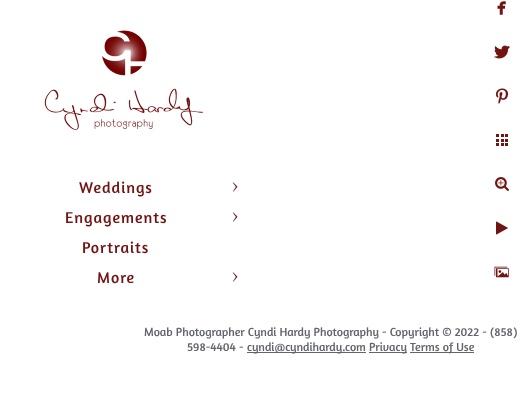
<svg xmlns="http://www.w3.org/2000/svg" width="529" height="398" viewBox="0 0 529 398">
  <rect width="100%" height="100%" fill="rgb(255,255,255)"/>
  <image x="44" y="30" width="160" height="100" href="pic1.png"/>
  <text x="79" y="193" font-family="Amaranth" font-size="16" letter-spacing="1" fill="rgb(113,20,18)">Weddings</text>
  <image x="232" y="182" width="6" height="10" href="pic2.png"/>
  <text x="65" y="223" font-family="Amaranth" font-size="16" letter-spacing="1" fill="rgb(113,20,18)">Engagements</text>
  <image x="232" y="212" width="6" height="10" href="pic2.png"/>
  <g font-family="Amaranth" font-size="16" letter-spacing="1" fill="rgb(113,20,18)">
    <text x="82" y="253">Portraits</text>
    <text x="97" y="283">More</text>
  </g>
  <image x="232" y="272" width="6" height="10" href="pic2.png"/>
  <image x="497" y="1" width="9" height="14" href="pic3.png"/>
  <image x="494" y="45" width="16" height="14" href="pic4.png"/>
  <image x="495" y="88" width="13" height="16" href="pic5.png"/>
  <image x="496" y="134" width="12" height="12" href="pic6.png"/>
  <image x="495" y="177" width="14" height="14" href="pic7.png"/>
  <image x="496" y="221" width="12" height="14" href="pic8.png"/>
  <image x="494" y="266" width="15" height="12" href="pic9.png"/>
  <g font-family="Amaranth" font-size="12" fill="rgb(98,101,110)">
    <text x="144" y="336">Moab Photographer Cyndi Hardy Photography - Copyright © 2022 - (858)</text>
    <text x="187" y="351">598-4404 -</text>
  </g>
  <rect x="247" y="352" width="119" height="1" fill="rgb(98,101,110)"/>
  <text x="247" y="351" font-family="Amaranth" font-size="12" fill="rgb(98,101,110)">cyndi@cyndihardy.com</text>
  <rect x="369" y="352" width="38" height="1" fill="rgb(98,101,110)"/>
  <text x="369" y="351" font-family="Amaranth" font-size="12" fill="rgb(98,101,110)">Privacy</text>
  <rect x="410" y="352" width="64" height="1" fill="rgb(98,101,110)"/>
  <text x="410" y="351" font-family="Amaranth" font-size="12" fill="rgb(98,101,110)">Terms of Use</text>
</svg>
